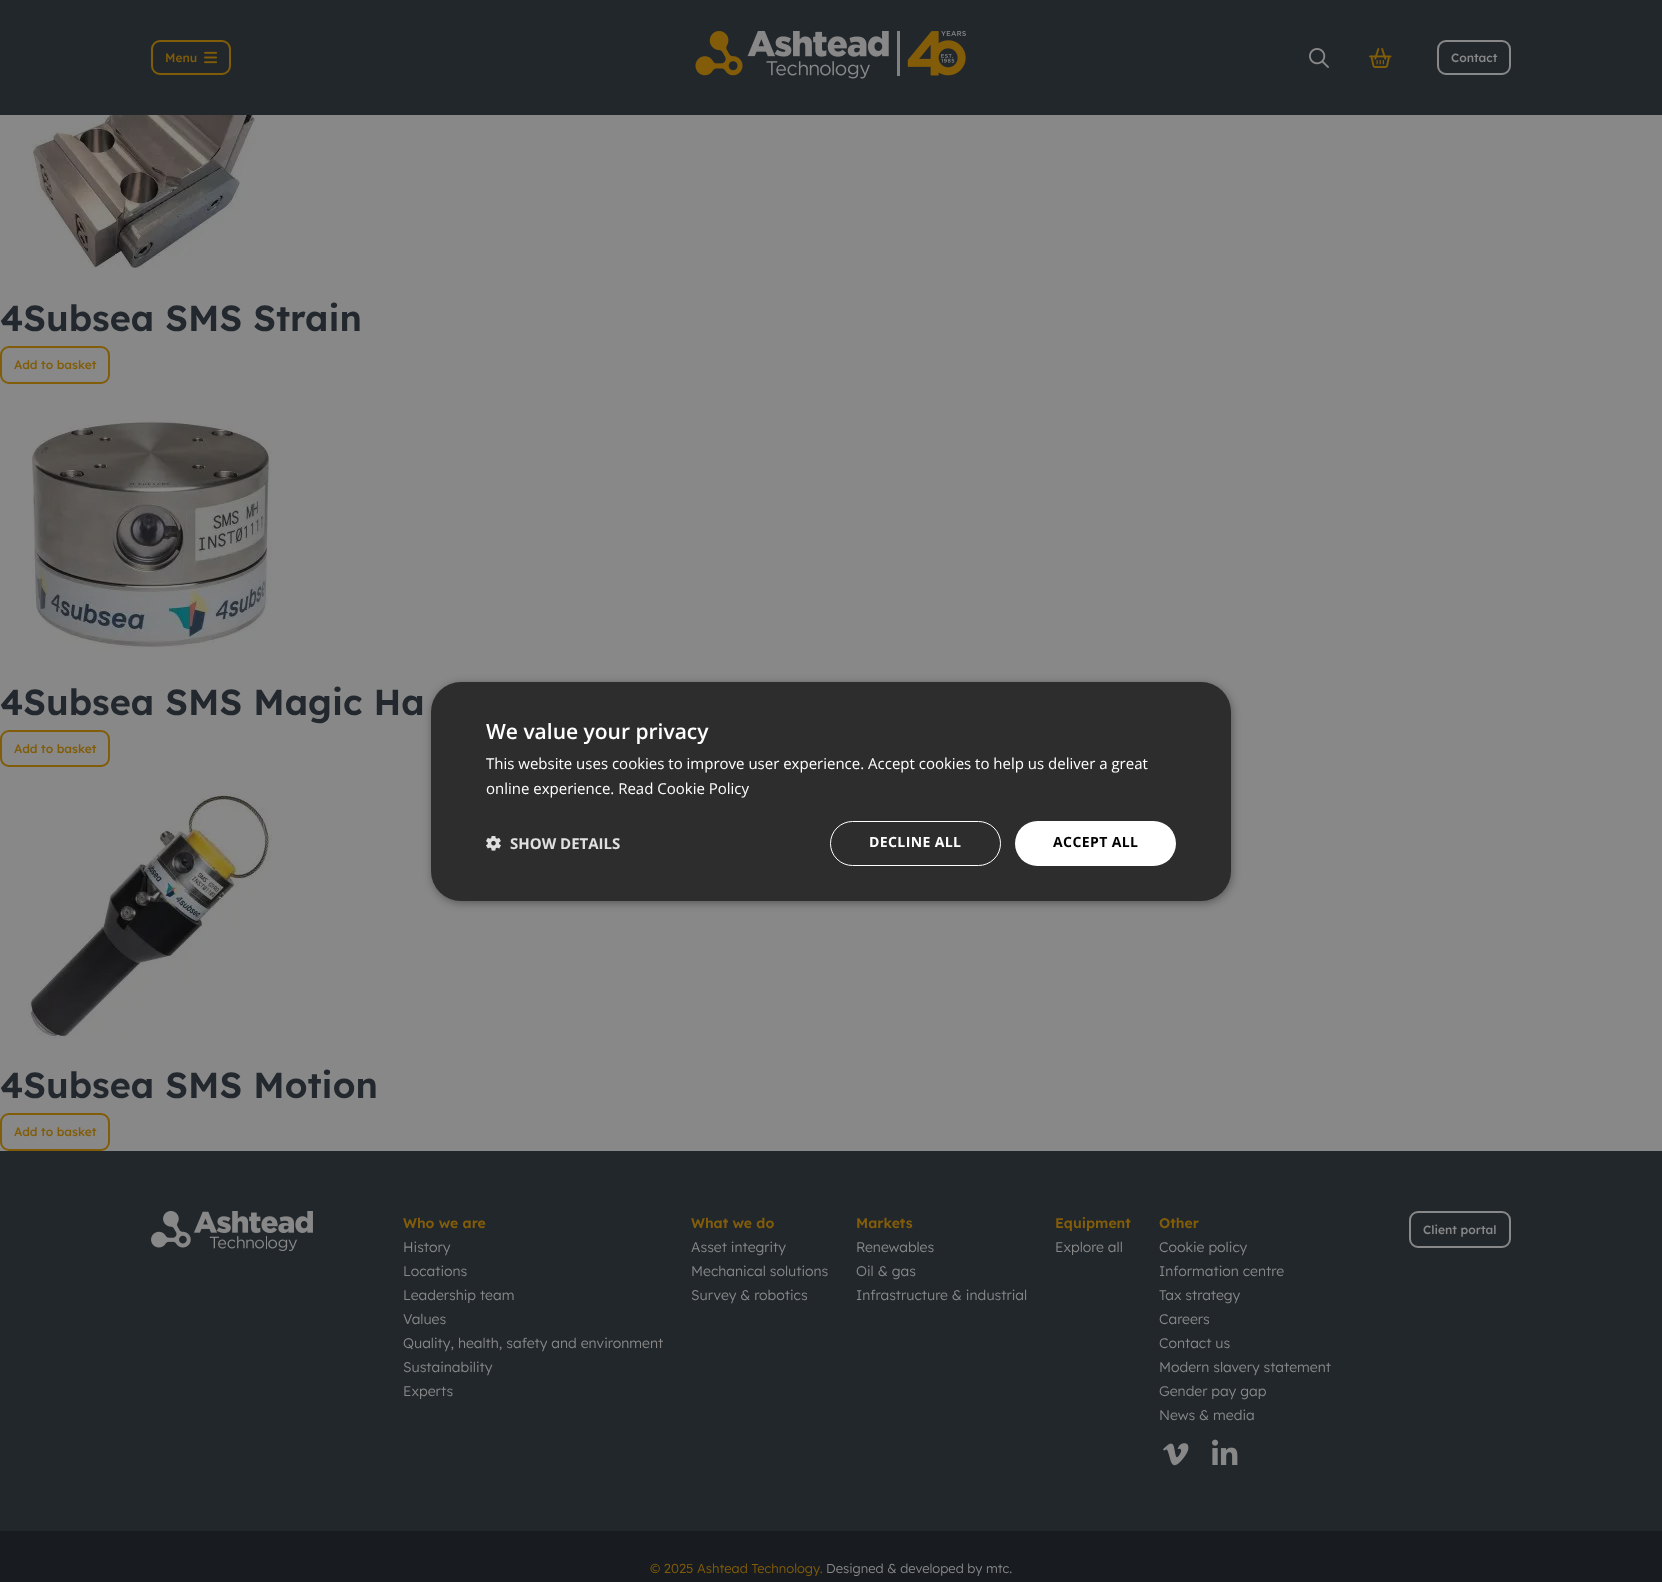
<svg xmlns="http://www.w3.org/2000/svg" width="1662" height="1582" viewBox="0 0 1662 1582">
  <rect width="100%" height="100%" fill="rgb(136,136,136)"/>
  <rect x="0" y="0" width="1662" height="115" fill="rgb(34,39,44)"/>
  <rect x="152" y="41" width="78" height="33" rx="8" fill="none" stroke="rgb(130,93,9)" stroke-width="2"/>
  <text x="165" y="62" font-family="Lexend Deca" font-size="12" font-weight="500" fill="rgb(130,93,9)">Menu</text>
  <image x="204" y="51" width="13" height="13" href="pic1.png"/>
  <image x="695" y="31" width="271" height="48" href="pic2.png"/>
  <image x="1309" y="48" width="20" height="20" href="pic3.png"/>
  <image x="1369" y="48" width="23" height="20" href="pic4.png"/>
  <rect x="1438" y="41" width="72" height="33" rx="8" fill="none" stroke="rgb(136,136,136)" stroke-width="2"/>
  <text x="1451" y="62" font-family="Lexend Deca" font-size="12" font-weight="500" fill="rgb(136,136,136)">Contact</text>
  <image x="32" y="115" width="236" height="153" href="pic5.png"/>
  <text x="0" y="331" font-family="Lexend Deca" font-size="36" font-weight="600" fill="rgb(34,40,45)">4Subsea SMS Strain</text>
  <rect x="1" y="347" width="108" height="36" rx="8" fill="none" stroke="rgb(130,93,9)" stroke-width="2"/>
  <text x="14" y="369" font-family="Lexend Deca" font-size="12" font-weight="500" fill="rgb(130,93,9)">Add to basket</text>
  <image x="32" y="420" width="240" height="232" href="pic6.png"/>
  <text x="0" y="715" font-family="Lexend Deca" font-size="36" font-weight="600" fill="rgb(34,40,45)">4Subsea SMS Magic Ha</text>
  <rect x="1" y="731" width="108" height="35" rx="8" fill="none" stroke="rgb(130,93,9)" stroke-width="2"/>
  <text x="14" y="753" font-family="Lexend Deca" font-size="12" font-weight="500" fill="rgb(130,93,9)">Add to basket</text>
  <image x="28" y="792" width="244" height="247" href="pic7.png"/>
  <text x="0" y="1098" font-family="Lexend Deca" font-size="36" font-weight="600" fill="rgb(34,40,45)">4Subsea SMS Motion</text>
  <rect x="1" y="1114" width="108" height="36" rx="8" fill="none" stroke="rgb(130,93,9)" stroke-width="2"/>
  <text x="14" y="1136" font-family="Lexend Deca" font-size="12" font-weight="500" fill="rgb(130,93,9)">Add to basket</text>
  <rect x="0" y="1151" width="1662" height="380" fill="rgb(34,39,44)"/>
  <image x="151" y="1211" width="162" height="40" href="pic8.png"/>
  <text x="403" y="1228" font-family="Lexend Deca" font-size="14" font-weight="600" fill="rgb(130,93,9)">Who we are</text>
  <g font-family="Lexend Deca" font-size="14" font-weight="300" fill="rgb(136,136,136)">
    <text>
      <tspan x="403" y="1252">History</tspan>
      <tspan x="403" y="1276">Locations</tspan>
      <tspan x="403" y="1300">Leadership team</tspan>
      <tspan x="403" y="1324">Values</tspan>
      <tspan x="403" y="1348">Quality, health, safety and environment</tspan>
      <tspan x="403" y="1372">Sustainability</tspan>
      <tspan x="403" y="1396">Experts</tspan>
    </text>
  </g>
  <text x="691" y="1228" font-family="Lexend Deca" font-size="14" font-weight="600" fill="rgb(130,93,9)">What we do</text>
  <g font-family="Lexend Deca" font-size="14" font-weight="300" fill="rgb(136,136,136)">
    <text>
      <tspan x="691" y="1252">Asset integrity</tspan>
      <tspan x="691" y="1276">Mechanical solutions</tspan>
      <tspan x="691" y="1300">Survey &amp; robotics</tspan>
    </text>
  </g>
  <text x="856" y="1228" font-family="Lexend Deca" font-size="14" font-weight="600" fill="rgb(130,93,9)">Markets</text>
  <g font-family="Lexend Deca" font-size="14" font-weight="300" fill="rgb(136,136,136)">
    <text>
      <tspan x="856" y="1252">Renewables</tspan>
      <tspan x="856" y="1276">Oil &amp; gas</tspan>
      <tspan x="856" y="1300">Infrastructure &amp; industrial</tspan>
    </text>
  </g>
  <text x="1055" y="1228" font-family="Lexend Deca" font-size="14" font-weight="600" fill="rgb(130,93,9)">Equipment</text>
  <text x="1055" y="1252" font-family="Lexend Deca" font-size="14" font-weight="300" fill="rgb(136,136,136)">Explore all</text>
  <text x="1159" y="1228" font-family="Lexend Deca" font-size="14" font-weight="600" fill="rgb(130,93,9)">Other</text>
  <g font-family="Lexend Deca" font-size="14" font-weight="300" fill="rgb(136,136,136)">
    <text>
      <tspan x="1159" y="1252">Cookie policy</tspan>
      <tspan x="1159" y="1276">Information centre</tspan>
      <tspan x="1159" y="1300">Tax strategy</tspan>
      <tspan x="1159" y="1324">Careers</tspan>
      <tspan x="1159" y="1348">Contact us</tspan>
      <tspan x="1159" y="1372">Modern slavery statement</tspan>
      <tspan x="1159" y="1396">Gender pay gap</tspan>
      <tspan x="1159" y="1420">News &amp; media</tspan>
    </text>
  </g>
  <image x="1163" y="1443" width="26" height="23" href="pic9.png"/>
  <image x="1212" y="1439" width="26" height="26" href="pic10.png"/>
  <rect x="1410" y="1212" width="100" height="35" rx="8" fill="none" stroke="rgb(136,136,136)" stroke-width="2"/>
  <text x="1423" y="1234" font-family="Lexend Deca" font-size="12" font-weight="500" fill="rgb(136,136,136)">Client portal</text>
  <rect x="0" y="1531" width="1662" height="51" fill="rgb(24,28,32)"/>
  <text x="650" y="1573" font-family="Lexend Deca" font-size="13" font-weight="300" fill="rgb(130,93,9)">© 2025 Ashtead Technology.</text>
  <text x="826" y="1573" font-family="Lexend Deca" font-size="13" font-weight="300" fill="rgb(136,136,136)">Designed &amp; developed by mtc.</text>
  <rect x="432" y="684" width="800" height="219" rx="30" fill="rgba(0,0,0,0.35)" filter="blur(4px)"/>
  <rect x="431" y="682" width="800" height="219" rx="30" fill="rgb(45,45,45)"/>
  <text x="486" y="739" font-family="Open Sans" font-size="21" font-weight="600" fill="rgb(255,255,255)">We value your privacy</text>
  <g font-family="Open Sans" font-size="15" fill="rgb(255,255,255)">
    <text>
      <tspan x="486" y="769">This website uses cookies to improve user experience. Accept cookies to help us deliver a great</tspan>
      <tspan x="486" y="794">online experience. Read Cookie Policy</tspan>
    </text>
  </g>
  <image x="486" y="836" width="15" height="15" href="pic11.png"/>
  <text x="510" y="849" font-family="Open Sans" font-size="15" font-weight="bold" fill="rgb(224,224,224)">SHOW DETAILS</text>
  <rect x="830.5" y="821.5" width="170" height="44" rx="22" fill="none" stroke="rgb(255,255,255)"/>
  <text x="869" y="847" font-family="Open Sans" font-size="14" font-weight="bold" letter-spacing="0.4" fill="rgb(255,255,255)">DECLINE ALL</text>
  <rect x="1015" y="821" width="161" height="45" rx="22.5" fill="rgb(255,255,255)"/>
  <text x="1053" y="847" font-family="Open Sans" font-size="14" font-weight="bold" letter-spacing="0.4" fill="rgb(0,0,0)">ACCEPT ALL</text>
</svg>
